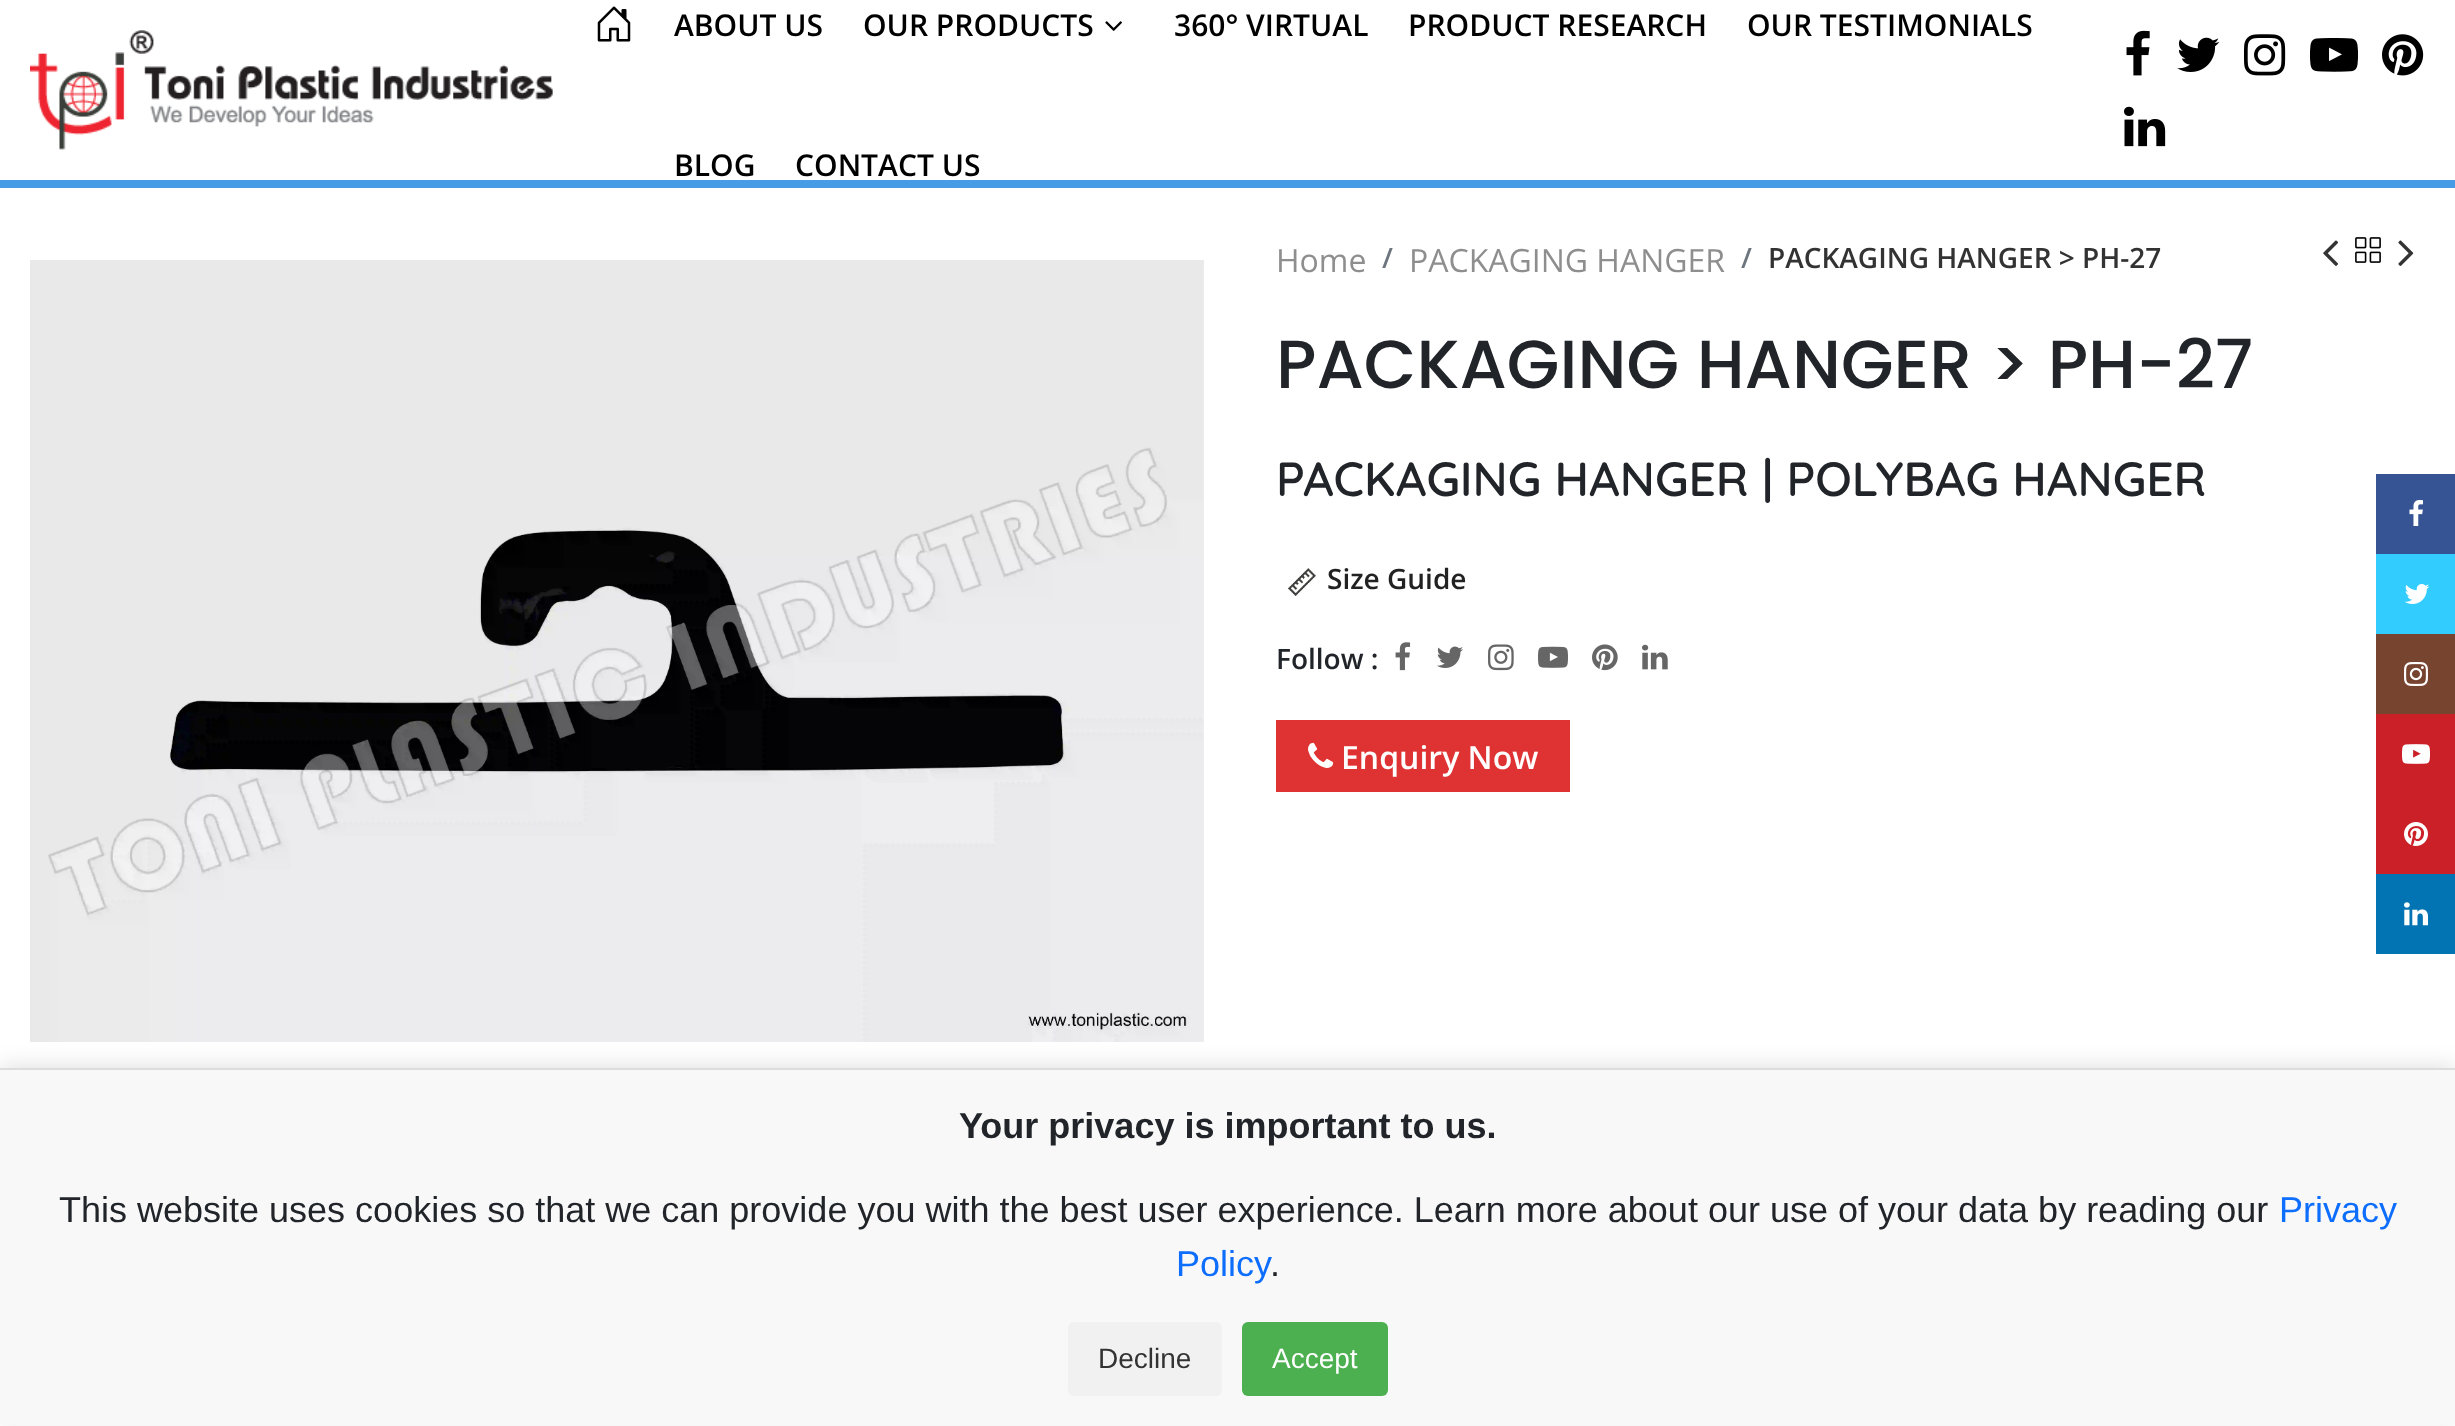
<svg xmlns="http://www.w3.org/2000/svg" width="2455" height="1426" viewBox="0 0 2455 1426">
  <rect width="100%" height="100%" fill="rgb(255,255,255)"/>
  <rect x="0" y="180" width="2455" height="8" fill="rgb(70,156,229)"/>
  <image x="30" y="30" width="523" height="120" href="pic1.png"/>
  <image x="597" y="6" width="34" height="36" href="pic2.png"/>
  <g font-family="Open Sans" font-size="30" font-weight="600" fill="rgb(0,0,0)">
    <text x="674" y="36">ABOUT US</text>
    <text x="863" y="36">OUR PRODUCTS</text>
  </g>
  <image x="1105" y="21" width="17" height="10" href="pic3.png"/>
  <g font-family="Open Sans" font-size="30" font-weight="600" fill="rgb(0,0,0)">
    <text x="1174" y="36">360° VIRTUAL</text>
    <text x="1408" y="36">PRODUCT RESEARCH</text>
    <text x="1747" y="36">OUR TESTIMONIALS</text>
    <text x="674" y="176">BLOG</text>
    <text x="795" y="176">CONTACT US</text>
  </g>
  <image x="2126" y="30" width="24" height="46" href="pic4.png"/>
  <image x="2177" y="37" width="43" height="35" href="pic5.png"/>
  <image x="2244" y="34" width="42" height="42" href="pic6.png"/>
  <image x="2310" y="38" width="48" height="34" href="pic7.png"/>
  <image x="2382" y="34" width="42" height="42" href="pic8.png"/>
  <image x="2124" y="106" width="42" height="41" href="pic9.png"/>
  <image x="30" y="260" width="1174" height="782" href="pic10.png"/>
  <text x="1276" y="272" font-family="Open Sans" font-size="32" fill="rgb(142,142,142)">Home</text>
  <text x="1382" y="268" font-family="Open Sans" font-size="28" font-weight="600" fill="rgb(108,117,125)">/</text>
  <text x="1409" y="272" font-family="Open Sans" font-size="32" fill="rgb(142,142,142)">PACKAGING HANGER</text>
  <text x="1741" y="268" font-family="Open Sans" font-size="28" font-weight="600" fill="rgb(108,117,125)">/</text>
  <text x="1768" y="268" font-family="Open Sans" font-size="28" font-weight="600" fill="rgb(51,51,51)">PACKAGING HANGER &gt; PH-27</text>
  <image x="2323" y="240" width="15" height="26" href="pic11.png"/>
  <image x="2355" y="237" width="26" height="26" href="pic12.png"/>
  <image x="2398" y="240" width="16" height="26" href="pic13.png"/>
  <text x="1276" y="388" font-family="Poppins" font-size="68" font-weight="500" fill="rgb(33,37,41)">PACKAGING HANGER &gt; PH-27</text>
  <text x="1276" y="496" font-family="Quicksand" font-size="48" font-weight="600" fill="rgb(33,37,41)">PACKAGING HANGER | POLYBAG HANGER</text>
  <image x="1288" y="568" width="28" height="28" href="pic14.png"/>
  <text x="1327" y="589" font-family="Open Sans" font-size="28" font-weight="600" fill="rgb(34,34,34)">Size Guide</text>
  <text x="1276" y="669" font-family="Open Sans" font-size="28" font-weight="600" fill="rgb(33,37,41)">Follow :</text>
  <image x="1395" y="642" width="16" height="29" href="pic15.png"/>
  <image x="1437" y="646" width="26" height="22" href="pic16.png"/>
  <image x="1488" y="644" width="26" height="27" href="pic17.png"/>
  <image x="1538" y="646" width="30" height="22" href="pic18.png"/>
  <image x="1592" y="644" width="26" height="27" href="pic19.png"/>
  <image x="1642" y="644" width="26" height="26" href="pic20.png"/>
  <rect x="1276" y="720" width="294" height="72" fill="rgb(223,51,51)"/>
  <image x="1308" y="742" width="26" height="26" href="pic21.png"/>
  <text x="1341" y="769" font-family="Open Sans" font-size="32" font-weight="600" fill="rgb(255,255,255)">Enquiry Now</text>
  <rect x="2376" y="474" width="79" height="80" fill="rgb(54,84,147)"/>
  <image x="2409" y="500" width="14" height="26" href="pic22.png"/>
  <rect x="2376" y="554" width="79" height="80" fill="rgb(51,204,255)"/>
  <image x="2404" y="584" width="26" height="20" href="pic23.png"/>
  <rect x="2376" y="634" width="79" height="80" fill="rgb(119,68,48)"/>
  <image x="2404" y="662" width="24" height="24" href="pic24.png"/>
  <rect x="2376" y="714" width="79" height="160" fill="rgb(203,32,39)"/>
  <image x="2402" y="744" width="28" height="20" href="pic25.png"/>
  <image x="2404" y="822" width="24" height="24" href="pic26.png"/>
  <rect x="2376" y="874" width="79" height="80" fill="rgb(2,116,179)"/>
  <image x="2404" y="902" width="24" height="24" href="pic27.png"/>
  <rect x="0" y="1064" width="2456" height="358" fill="rgba(0,0,0,0.1)" filter="blur(10px)"/>
  <rect x="0" y="1070" width="2455" height="355" fill="rgb(248,248,248)"/>
  <rect x="0" y="1068" width="2455" height="2" fill="rgb(221,221,221)"/>
  <text x="959" y="1138" font-family="Liberation Sans" font-size="36" font-weight="bold" fill="rgb(33,37,41)">Your privacy is important to us.</text>
  <text x="59" y="1222" font-family="Liberation Sans" font-size="36" fill="rgb(33,37,41)">This website uses cookies so that we can provide you with the best user experience. Learn more about our use of your data by reading our</text>
  <g font-family="Liberation Sans" font-size="36" fill="rgb(13,110,253)">
    <text x="2279" y="1222">Privacy</text>
    <text x="1176" y="1276">Policy</text>
  </g>
  <text x="1270" y="1276" font-family="Liberation Sans" font-size="36" fill="rgb(33,37,41)">.</text>
  <rect x="1068" y="1322" width="154" height="74" rx="6" fill="rgb(241,241,241)"/>
  <text x="1098" y="1368" font-family="Liberation Sans" font-size="28" fill="rgb(51,51,51)">Decline</text>
  <rect x="1242" y="1322" width="146" height="74" rx="6" fill="rgb(76,175,80)"/>
  <text x="1272" y="1368" font-family="Liberation Sans" font-size="28" fill="rgb(255,255,255)">Accept</text>
</svg>
